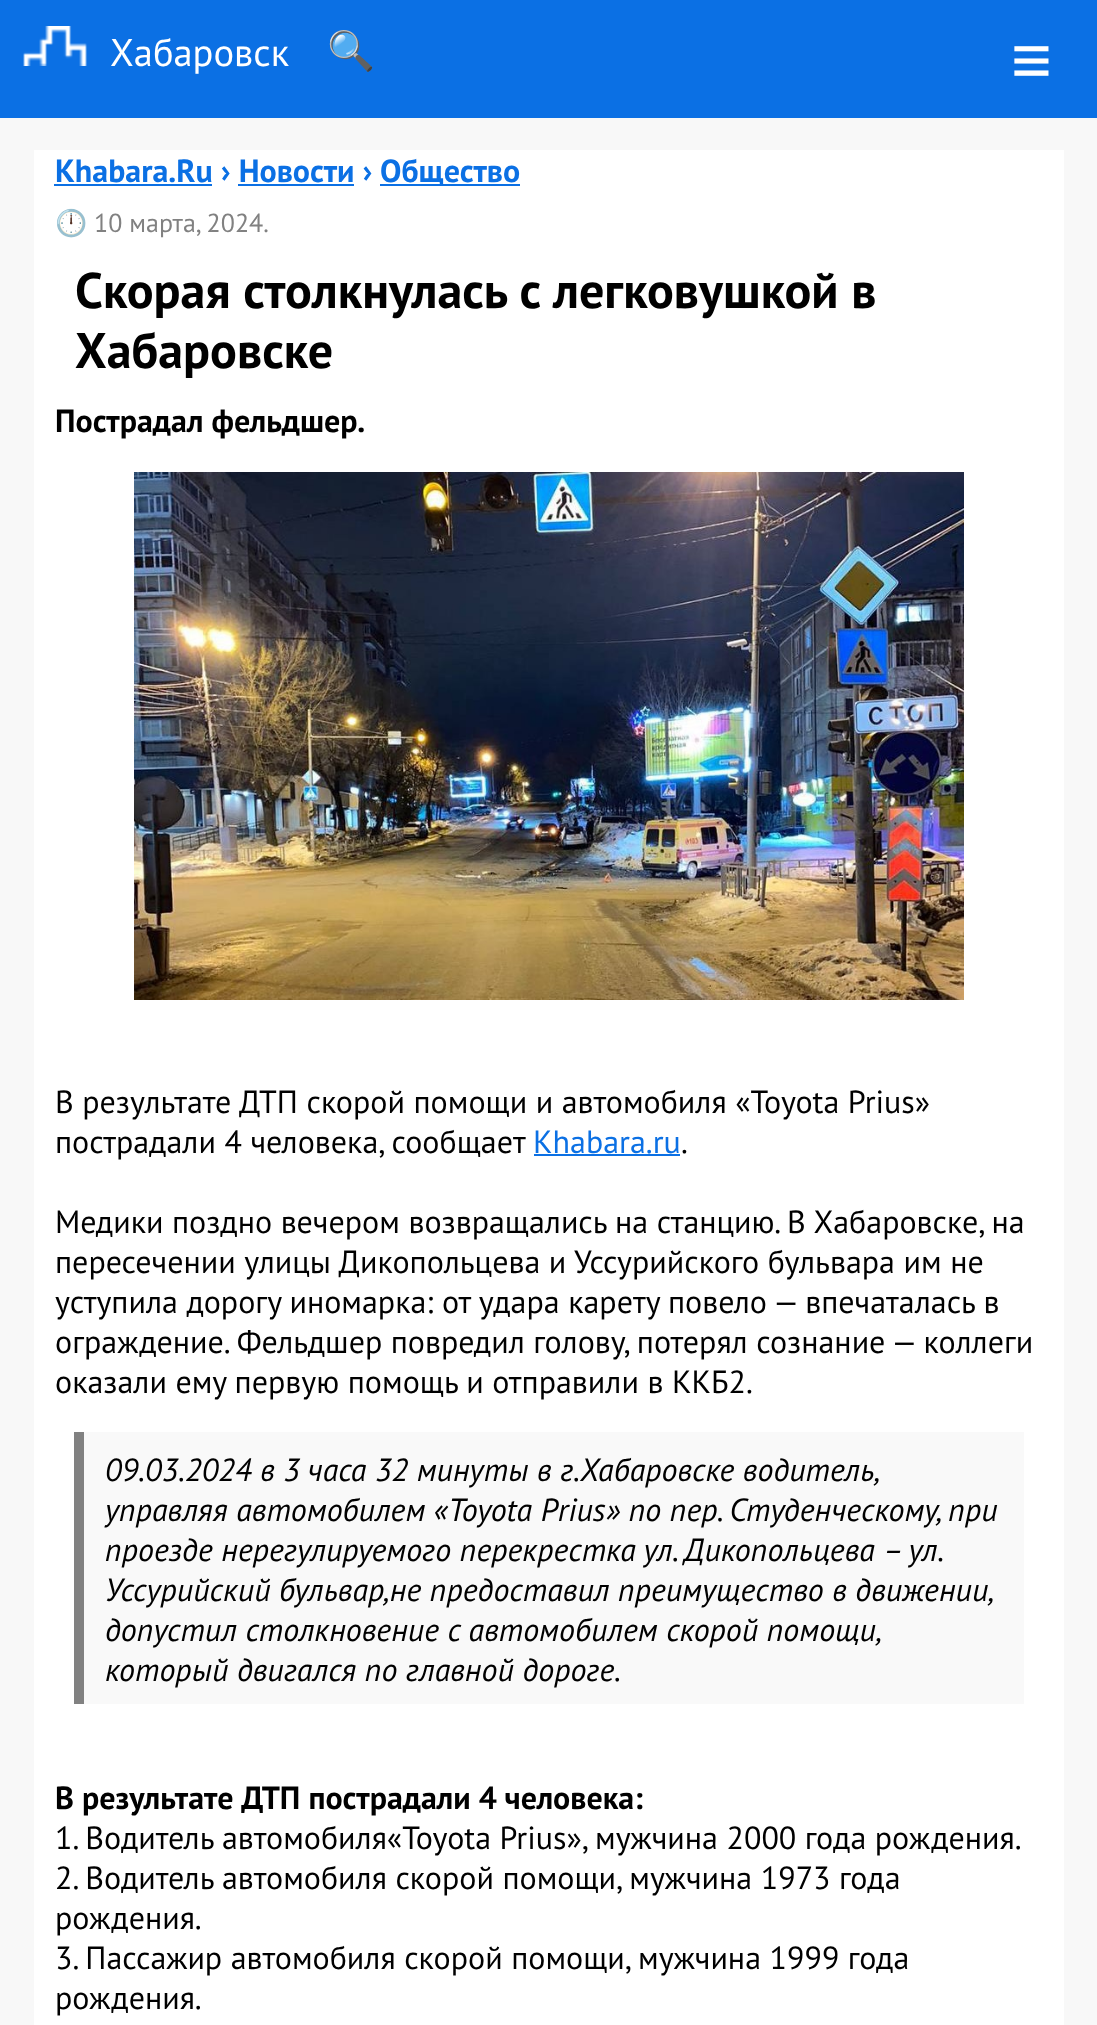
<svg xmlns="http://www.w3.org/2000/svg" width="1097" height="2025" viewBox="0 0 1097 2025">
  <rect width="100%" height="100%" fill="rgb(248,248,248)"/>
  <rect x="0" y="0" width="1097" height="118" fill="rgb(11,112,228)"/>
  <image x="23" y="26" width="64" height="40" href="pic1.png"/>
  <text x="110" y="66" font-family="PT Sans" font-size="38.5" fill="rgb(255,255,255)">Хабаровск</text>
  <text x="327" y="64" font-family="Noto Color Emoji" font-size="38.5" fill="rgb(255,255,255)">🔍</text>
  <text x="1011" y="84" font-family="Liberation Sans" font-size="70" fill="rgb(255,255,255)">≡</text>
  <rect x="34" y="150" width="1030" height="1875" fill="rgb(255,255,255)"/>
  <text x="55" y="182" font-family="PT Sans" font-size="32" font-weight="bold" fill="rgb(11,112,228)">Khabara.Ru › Новости ›</text>
  <rect x="54" y="184" width="158" height="2" fill="rgb(11,112,228)"/>
  <rect x="238" y="184" width="116" height="2" fill="rgb(11,112,228)"/>
  <rect x="380" y="184" width="140" height="2" fill="rgb(11,112,228)"/>
  <text x="380" y="182" font-family="PT Sans" font-size="32" font-weight="bold" fill="rgb(11,112,228)">Общество</text>
  <text x="55" y="232" font-family="Noto Color Emoji" font-size="26" fill="rgb(129,129,129)">🕛</text>
  <text x="94" y="232" font-family="PT Sans" font-size="26" fill="rgb(129,129,129)">10 марта, 2024.</text>
  <g font-family="PT Sans" font-size="50" font-weight="bold" fill="rgb(0,0,0)">
    <text>
      <tspan x="75" y="308">Скорая столкнулась с легковушкой в</tspan>
      <tspan x="75" y="368">Хабаровске</tspan>
    </text>
  </g>
  <text x="55" y="432" font-family="PT Sans" font-size="32" font-weight="bold" fill="rgb(0,0,0)">Пострадал фельдшер.</text>
  <image x="134" y="472" width="830" height="528" href="pic2.png"/>
  <g font-family="PT Sans" font-size="32" fill="rgb(0,0,0)">
    <text>
      <tspan x="55" y="1113">В результате ДТП скорой помощи и автомобиля «Toyota Prius»</tspan>
      <tspan x="55" y="1153">пострадали 4 человека, сообщает</tspan>
    </text>
  </g>
  <text x="533" y="1153" font-family="PT Sans" font-size="32" fill="rgb(11,112,228)">Khabara.ru</text>
  <rect x="534" y="1154" width="146" height="2" fill="rgb(11,112,228)"/>
  <g font-family="PT Sans" font-size="32" fill="rgb(0,0,0)">
    <text x="681" y="1153">.</text>
    <text>
      <tspan x="55" y="1233">Медики поздно вечером возвращались на станцию. В Хабаровске, на</tspan>
      <tspan x="55" y="1273">пересечении улицы Дикопольцева и Уссурийского бульвара им не</tspan>
      <tspan x="55" y="1313">уступила дорогу иномарка: от удара карету повело — впечаталась в</tspan>
      <tspan x="55" y="1353">ограждение. Фельдшер повредил голову, потерял сознание — коллеги</tspan>
      <tspan x="55" y="1393">оказали ему первую помощь и отправили в ККБ2.</tspan>
    </text>
  </g>
  <rect x="84" y="1432" width="940" height="272" fill="rgb(249,249,249)"/>
  <rect x="74" y="1432" width="10" height="272" fill="rgb(129,129,129)"/>
  <g font-family="PT Sans" font-size="32" font-style="italic" fill="rgb(0,0,0)">
    <text>
      <tspan x="105" y="1481">09.03.2024 в 3 часа 32 минуты в г.Хабаровске водитель,</tspan>
      <tspan x="105" y="1521">управляя автомобилем «Toyota Prius» по пер. Студенческому, при</tspan>
      <tspan x="105" y="1561">проезде нерегулируемого перекрестка ул. Дикопольцева – ул.</tspan>
      <tspan x="105" y="1601">Уссурийский бульвар,не предоставил преимущество в движении,</tspan>
      <tspan x="105" y="1641">допустил столкновение с автомобилем скорой помощи,</tspan>
      <tspan x="105" y="1681">который двигался по главной дороге.</tspan>
    </text>
  </g>
  <text x="55" y="1809" font-family="PT Sans" font-size="32" font-weight="bold" fill="rgb(0,0,0)">В результате ДТП пострадали 4 человека:</text>
  <g font-family="PT Sans" font-size="32" fill="rgb(0,0,0)">
    <text>
      <tspan x="55" y="1849">1. Водитель автомобиля«Toyota Prius», мужчина 2000 года рождения.</tspan>
      <tspan x="55" y="1889">2. Водитель автомобиля скорой помощи, мужчина 1973 года</tspan>
      <tspan x="55" y="1929">рождения.</tspan>
      <tspan x="55" y="1969">3. Пассажир автомобиля скорой помощи, мужчина 1999 года</tspan>
      <tspan x="55" y="2009">рождения.</tspan>
    </text>
  </g>
</svg>
